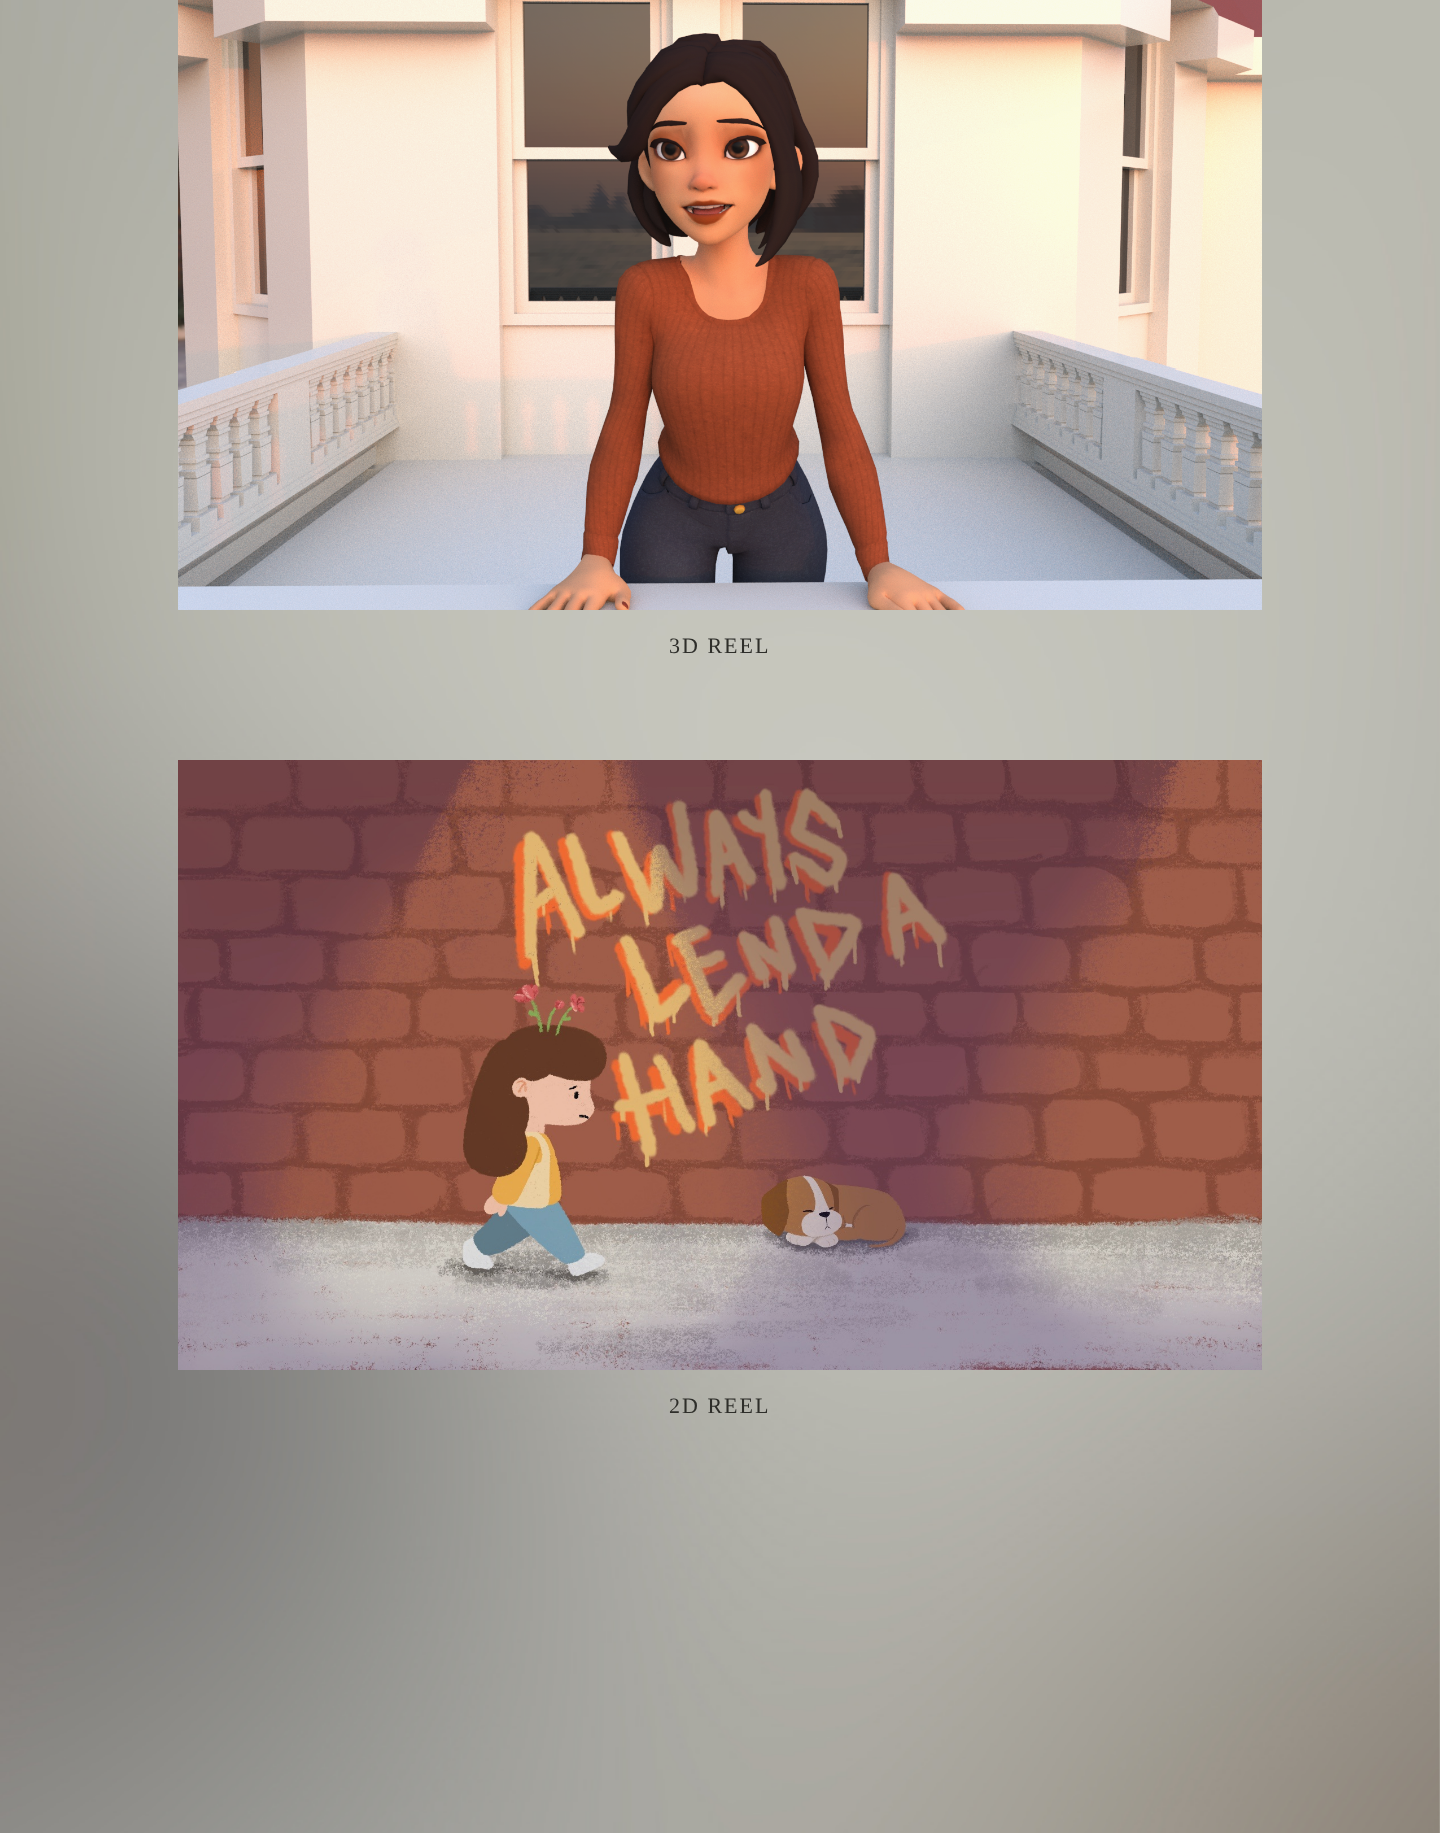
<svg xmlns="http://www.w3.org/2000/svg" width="1440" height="1833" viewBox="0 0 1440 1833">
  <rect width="100%" height="100%" fill="rgb(186,186,178)"/>
  <image x="0" y="0" width="1440" height="1833" href="pic1.png"/>
  <image x="178" y="0" width="1084" height="610" href="pic2.png"/>
  <text x="669" y="653" font-family="Liberation Serif" font-size="22" letter-spacing="2" fill="rgb(46,46,42)">3D REEL</text>
  <image x="178" y="760" width="1084" height="610" href="pic3.png"/>
  <text x="669" y="1413" font-family="Liberation Serif" font-size="22" letter-spacing="2" fill="rgb(46,46,42)">2D REEL</text>
</svg>
